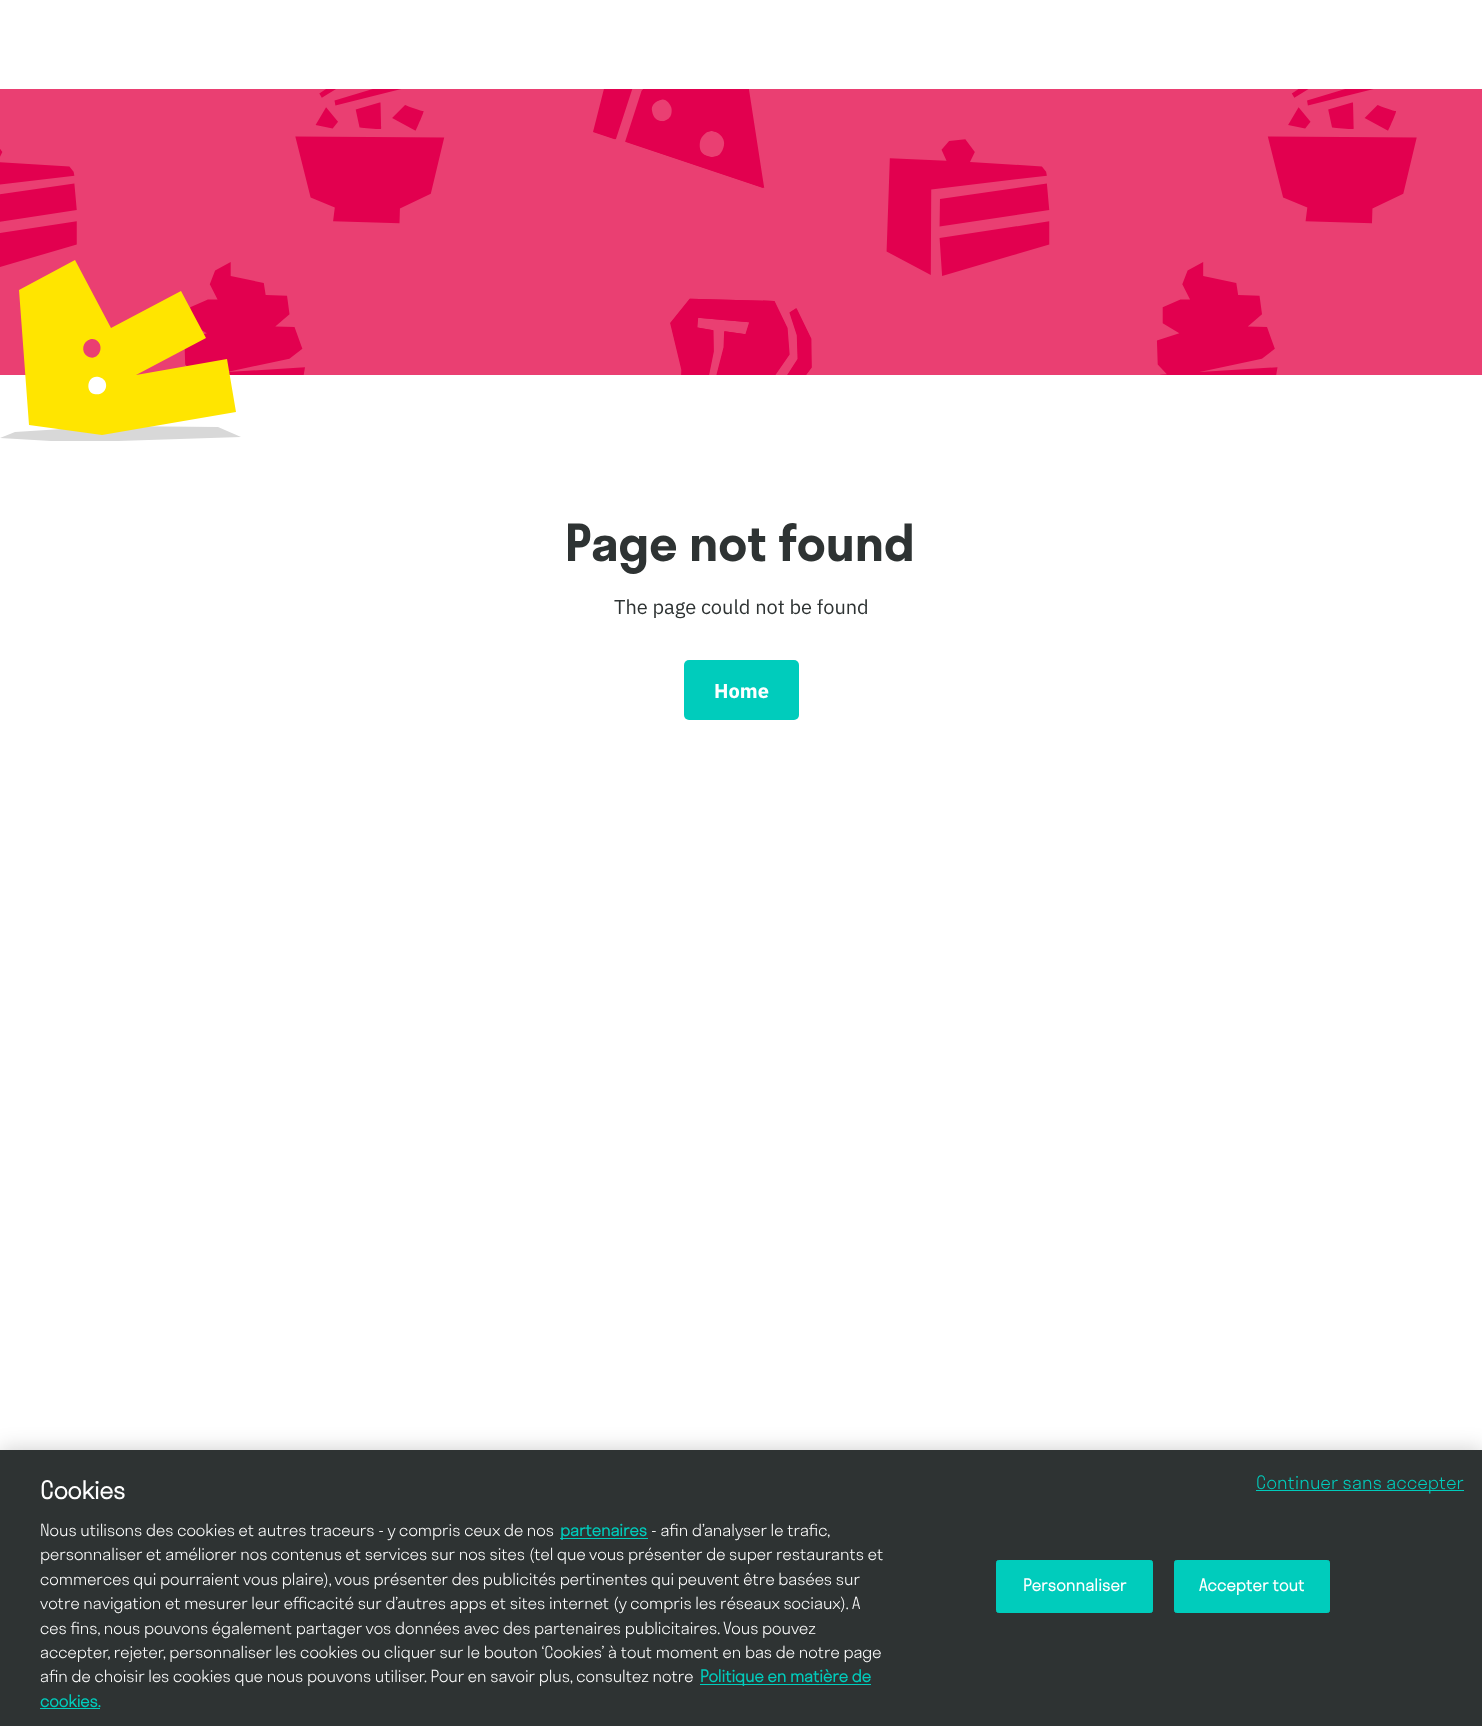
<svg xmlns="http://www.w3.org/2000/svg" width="1482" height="1726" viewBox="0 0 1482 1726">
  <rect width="100%" height="100%" fill="rgb(255,255,255)"/>
  <image x="0" y="89" width="1482" height="286" href="pic1.png"/>
  <path d="M109 426L15 432L0 438L51 441H118L241 437L218 427Z" fill="rgb(216,216,216)" fill-rule="evenodd"/>
  <path d="M227 359L136 375L206 338L181 291L111 328L75 260L19 290L29 425L102 435L236 412ZM87 356C81 352 82 341 91 339C93 339 95 339 96 340C106 346 98 363 87 356ZM94 394C85 392 87 374 99 377C111 380 107 397 94 394Z" fill="rgb(255,229,0)" fill-rule="evenodd"/>
  <text x="565" y="561" font-family="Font" font-size="50" font-weight="600" fill="rgb(46,51,51)">Page not found</text>
  <text x="614" y="614" font-family="IBM Plex Sans" font-size="20" fill="rgb(46,51,51)">The page could not be found</text>
  <rect x="684" y="660" width="115" height="60" rx="5" fill="rgb(0,204,188)"/>
  <text x="714" y="698" font-family="IBM Plex Sans" font-size="20" font-weight="bold" fill="rgb(255,255,255)">Home</text>
  <rect x="0" y="1450" width="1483" height="276" fill="rgba(0,0,0,0.2)" filter="blur(11px)"/>
  <rect x="0" y="1450" width="1482" height="276" fill="rgb(46,51,51)"/>
  <text x="40" y="1499" font-family="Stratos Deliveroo" font-size="24" font-weight="bold" fill="rgb(255,255,255)">Cookies</text>
  <text x="40" y="1536" font-family="Stratos Deliveroo" font-size="16.25" font-weight="300" fill="rgb(255,255,255)">Nous utilisons des cookies et autres traceurs - y compris ceux de nos</text>
  <rect x="560" y="1538" width="88" height="1" fill="rgb(0,204,188)"/>
  <text x="560" y="1536" font-family="Stratos Deliveroo" font-size="16.25" font-weight="bold" fill="rgb(0,204,188)">partenaires</text>
  <g font-family="Stratos Deliveroo" font-size="16.25" font-weight="300" fill="rgb(255,255,255)">
    <text x="651" y="1536">- afin d’analyser le trafic,</text>
    <text>
      <tspan x="40" y="1560">personnaliser et améliorer nos contenus et services sur nos sites (tel que vous présenter de super restaurants et</tspan>
      <tspan x="40" y="1585">commerces qui pourraient vous plaire), vous présenter des publicités pertinentes qui peuvent être basées sur</tspan>
      <tspan x="40" y="1609">votre navigation et mesurer leur efficacité sur d’autres apps et sites internet (y compris les réseaux sociaux). A</tspan>
      <tspan x="40" y="1634">ces fins, nous pouvons également partager vos données avec des partenaires publicitaires. Vous pouvez</tspan>
      <tspan x="40" y="1658">accepter, rejeter, personnaliser les cookies ou cliquer sur le bouton ‘Cookies’ à tout moment en bas de notre page</tspan>
      <tspan x="40" y="1682">afin de choisir les cookies que nous pouvons utiliser. Pour en savoir plus, consultez notre</tspan>
    </text>
  </g>
  <rect x="700" y="1684" width="171" height="1" fill="rgb(0,204,188)"/>
  <g font-family="Stratos Deliveroo" font-size="16.25" font-weight="bold" fill="rgb(0,204,188)">
    <text x="700" y="1682">Politique en matière de</text>
    <text x="40" y="1707">cookies.</text>
  </g>
  <rect x="40" y="1708" width="60" height="1" fill="rgb(0,204,188)"/>
  <rect x="996.5" y="1560.5" width="156" height="52" rx="2" fill="rgb(0,204,188)" stroke="rgb(0,204,188)"/>
  <text x="1023" y="1591" font-family="Stratos Deliveroo" font-size="16.25" font-weight="bold" letter-spacing="0.2" fill="rgb(255,255,255)">Personnaliser</text>
  <rect x="1174.5" y="1560.5" width="155" height="52" rx="2" fill="rgb(0,204,188)" stroke="rgb(0,204,188)"/>
  <text x="1199" y="1591" font-family="Stratos Deliveroo" font-size="16.25" font-weight="bold" letter-spacing="0.2" fill="rgb(255,255,255)">Accepter tout</text>
  <rect x="1256" y="1490" width="208" height="1" fill="rgb(0,204,188)"/>
  <text x="1256" y="1489" font-family="Stratos Deliveroo" font-size="18" font-weight="300" letter-spacing="0.2" fill="rgb(0,204,188)">Continuer sans accepter</text>
</svg>
